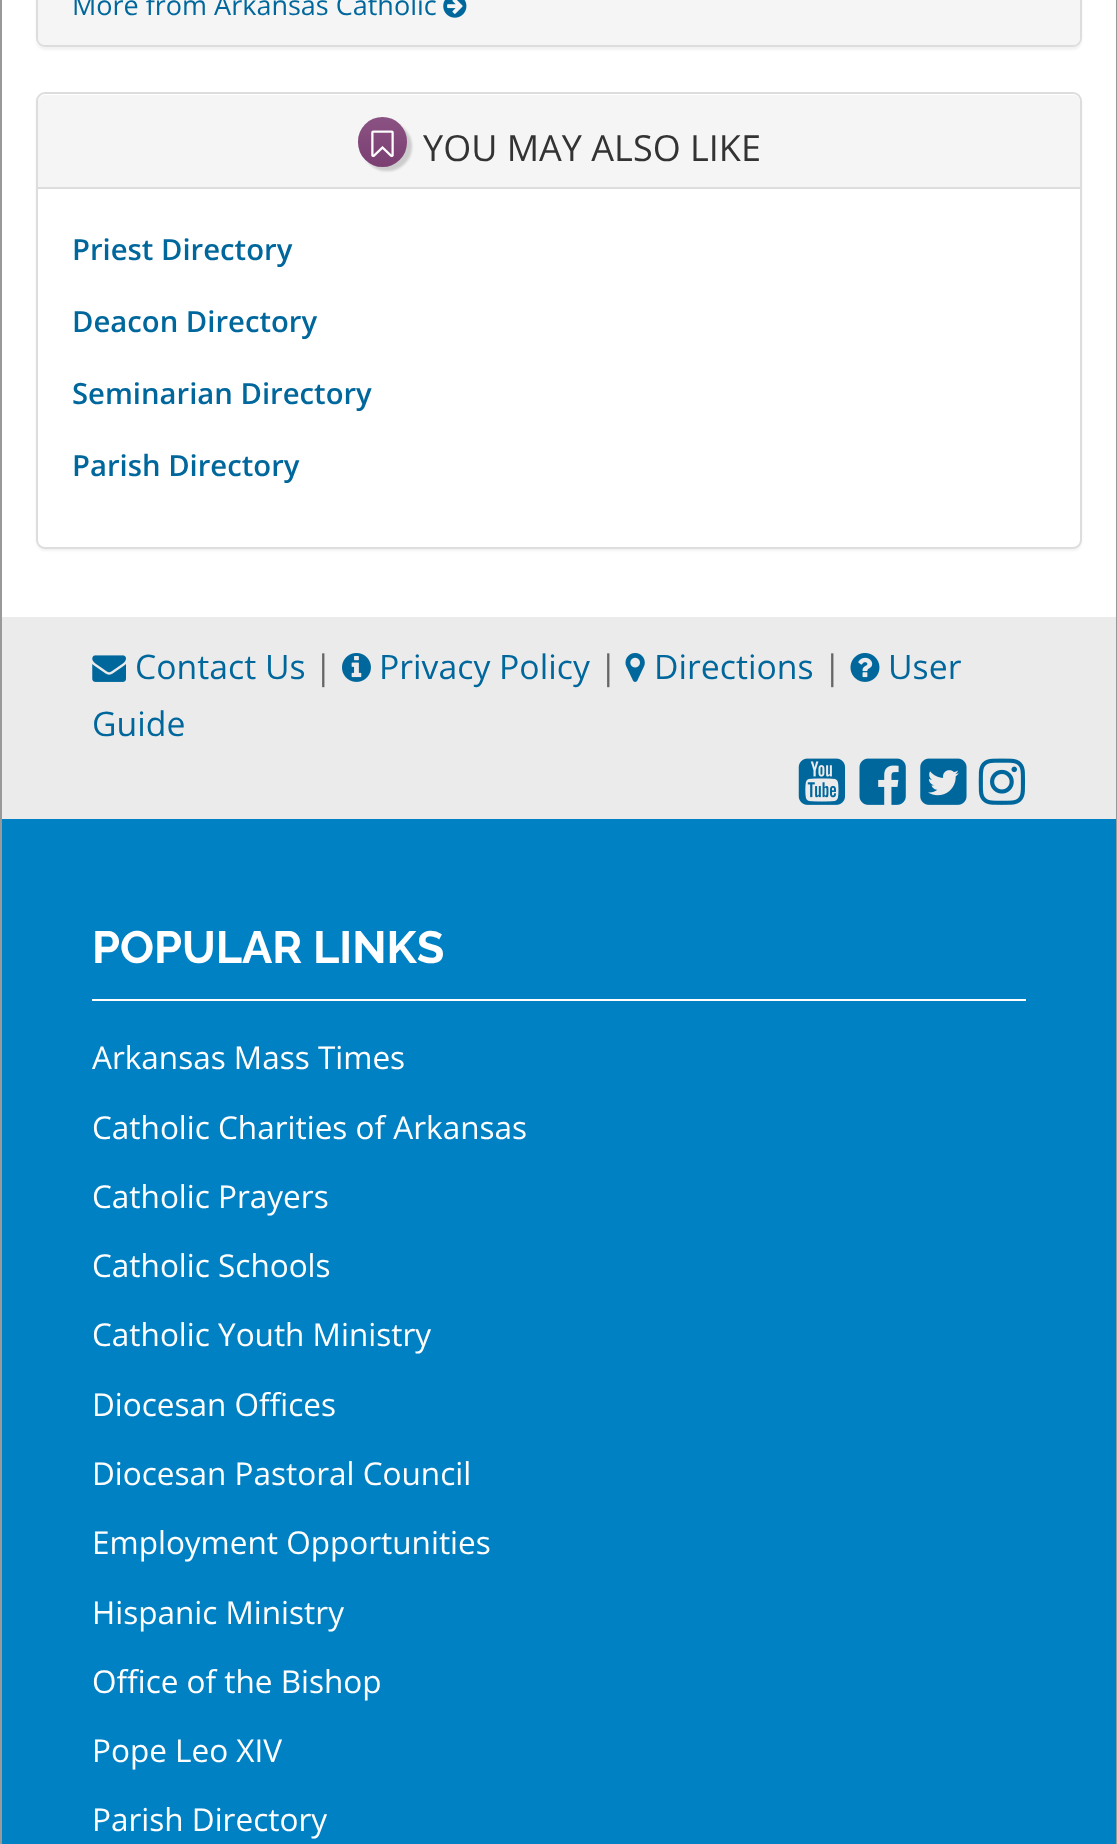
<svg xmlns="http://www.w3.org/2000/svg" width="1117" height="1844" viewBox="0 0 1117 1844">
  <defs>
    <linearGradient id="g1" gradientUnits="userSpaceOnUse" x1="383" y1="167" x2="383" y2="117"><stop offset="0" stop-color="rgb(123,63,114)"/><stop offset="1" stop-color="rgb(138,82,130)"/></linearGradient>
  </defs>
  <rect width="100%" height="100%" fill="rgb(255,255,255)"/>
  <rect x="1116" y="0" width="1" height="1844" fill="rgb(153,153,153)"/>
  <rect x="0" y="0" width="2" height="1844" fill="rgb(153,153,153)"/>
  <rect x="36" y="-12" width="1046" height="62" rx="9" fill="rgba(0,0,0,0.05)" filter="blur(1px)"/>
  <rect x="37" y="-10" width="1044" height="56" rx="8" fill="none" stroke="rgb(221,221,221)" stroke-width="2"/>
  <path d="M38-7H1080V38C1080 42 1077 45 1073 45H45C41 45 38 42 38 38Z" fill="rgb(245,245,245)"/>
  <text x="72" y="15" font-family="Open Sans" font-size="27" fill="rgb(0,103,156)">More from Arkansas Catholic</text>
  <image x="443" y="0" width="24" height="18" href="pic1.png"/>
  <rect x="36" y="95" width="1046" height="456" rx="9" fill="rgba(0,0,0,0.05)" filter="blur(1px)"/>
  <rect x="37" y="93" width="1044" height="455" rx="8" fill="rgb(255,255,255)" stroke="rgb(221,221,221)" stroke-width="2"/>
  <path d="M45 95H1073C1077 95 1080 98 1080 102V189H38V102C38 98 41 95 45 95Z" fill="rgb(245,245,245)"/>
  <rect x="38" y="187" width="1042" height="2" fill="rgb(221,221,221)"/>
  <rect x="362" y="122" width="50" height="49" rx="24.5" fill="rgb(204,204,204)" filter="blur(1px)"/>
  <rect x="358" y="117" width="49" height="50" rx="24.5" fill="url(#g1)"/>
  <image x="371" y="130" width="23" height="28" href="pic2.png"/>
  <text x="423" y="161" font-family="Open Sans" font-size="36" fill="rgb(51,51,51)">YOU MAY ALSO LIKE</text>
  <g font-family="Open Sans" font-size="29.25" font-weight="600" fill="rgb(0,103,156)">
    <text x="72" y="260">Priest Directory</text>
    <text x="72" y="332">Deacon Directory</text>
    <text x="72" y="404">Seminarian Directory</text>
    <text x="72" y="476">Parish Directory</text>
  </g>
  <rect x="2" y="617" width="1114" height="202" fill="rgb(235,235,235)"/>
  <text x="314" y="679" font-family="Open Sans" font-size="33.75" fill="rgb(102,102,102)">|</text>
  <image x="342" y="653" width="29" height="29" href="pic3.png"/>
  <text x="379" y="679" font-family="Open Sans" font-size="33.75" fill="rgb(0,103,156)">Privacy Policy</text>
  <g font-family="Open Sans" font-size="33.75" fill="rgb(102,102,102)">
    <text x="599" y="679">|</text>
    <text x="823" y="679">|</text>
  </g>
  <image x="850" y="653" width="30" height="29" href="pic4.png"/>
  <g font-family="Open Sans" font-size="33.75" fill="rgb(0,103,156)">
    <text x="888" y="679">User</text>
    <text x="92" y="736">Guide</text>
  </g>
  <image x="92" y="655" width="34" height="27" href="pic5.png"/>
  <text x="135" y="679" font-family="Open Sans" font-size="33.75" fill="rgb(0,103,156)">Contact Us</text>
  <image x="625" y="653" width="20" height="29" href="pic6.png"/>
  <text x="654" y="679" font-family="Open Sans" font-size="33.75" fill="rgb(0,103,156)">Directions</text>
  <image x="798" y="758" width="48" height="47" href="pic7.png"/>
  <image x="859" y="758" width="47" height="47" href="pic8.png"/>
  <image x="920" y="758" width="47" height="47" href="pic9.png"/>
  <image x="978" y="758" width="48" height="47" href="pic10.png"/>
  <rect x="2" y="819" width="1114" height="1025" fill="rgb(0,129,196)"/>
  <rect x="92" y="999" width="934" height="2" fill="rgb(255,255,255)"/>
  <text x="92" y="963" font-family="Raleway" font-size="45" font-weight="bold" fill="rgb(255,255,255)">POPULAR LINKS</text>
  <g font-family="Open Sans" font-size="31.5" fill="rgb(255,255,255)">
    <text x="92" y="1069">Arkansas Mass Times</text>
    <text x="92" y="1139">Catholic Charities of Arkansas</text>
    <text x="92" y="1208">Catholic Prayers</text>
    <text x="92" y="1277">Catholic Schools</text>
    <text x="92" y="1346">Catholic Youth Ministry</text>
    <text x="92" y="1416">Diocesan Offices</text>
    <text x="92" y="1485">Diocesan Pastoral Council</text>
    <text x="92" y="1554">Employment Opportunities</text>
    <text x="92" y="1624">Hispanic Ministry</text>
    <text x="92" y="1693">Office of the Bishop</text>
    <text x="92" y="1762">Pope Leo XIV</text>
    <text x="92" y="1831">Parish Directory</text>
  </g>
</svg>
